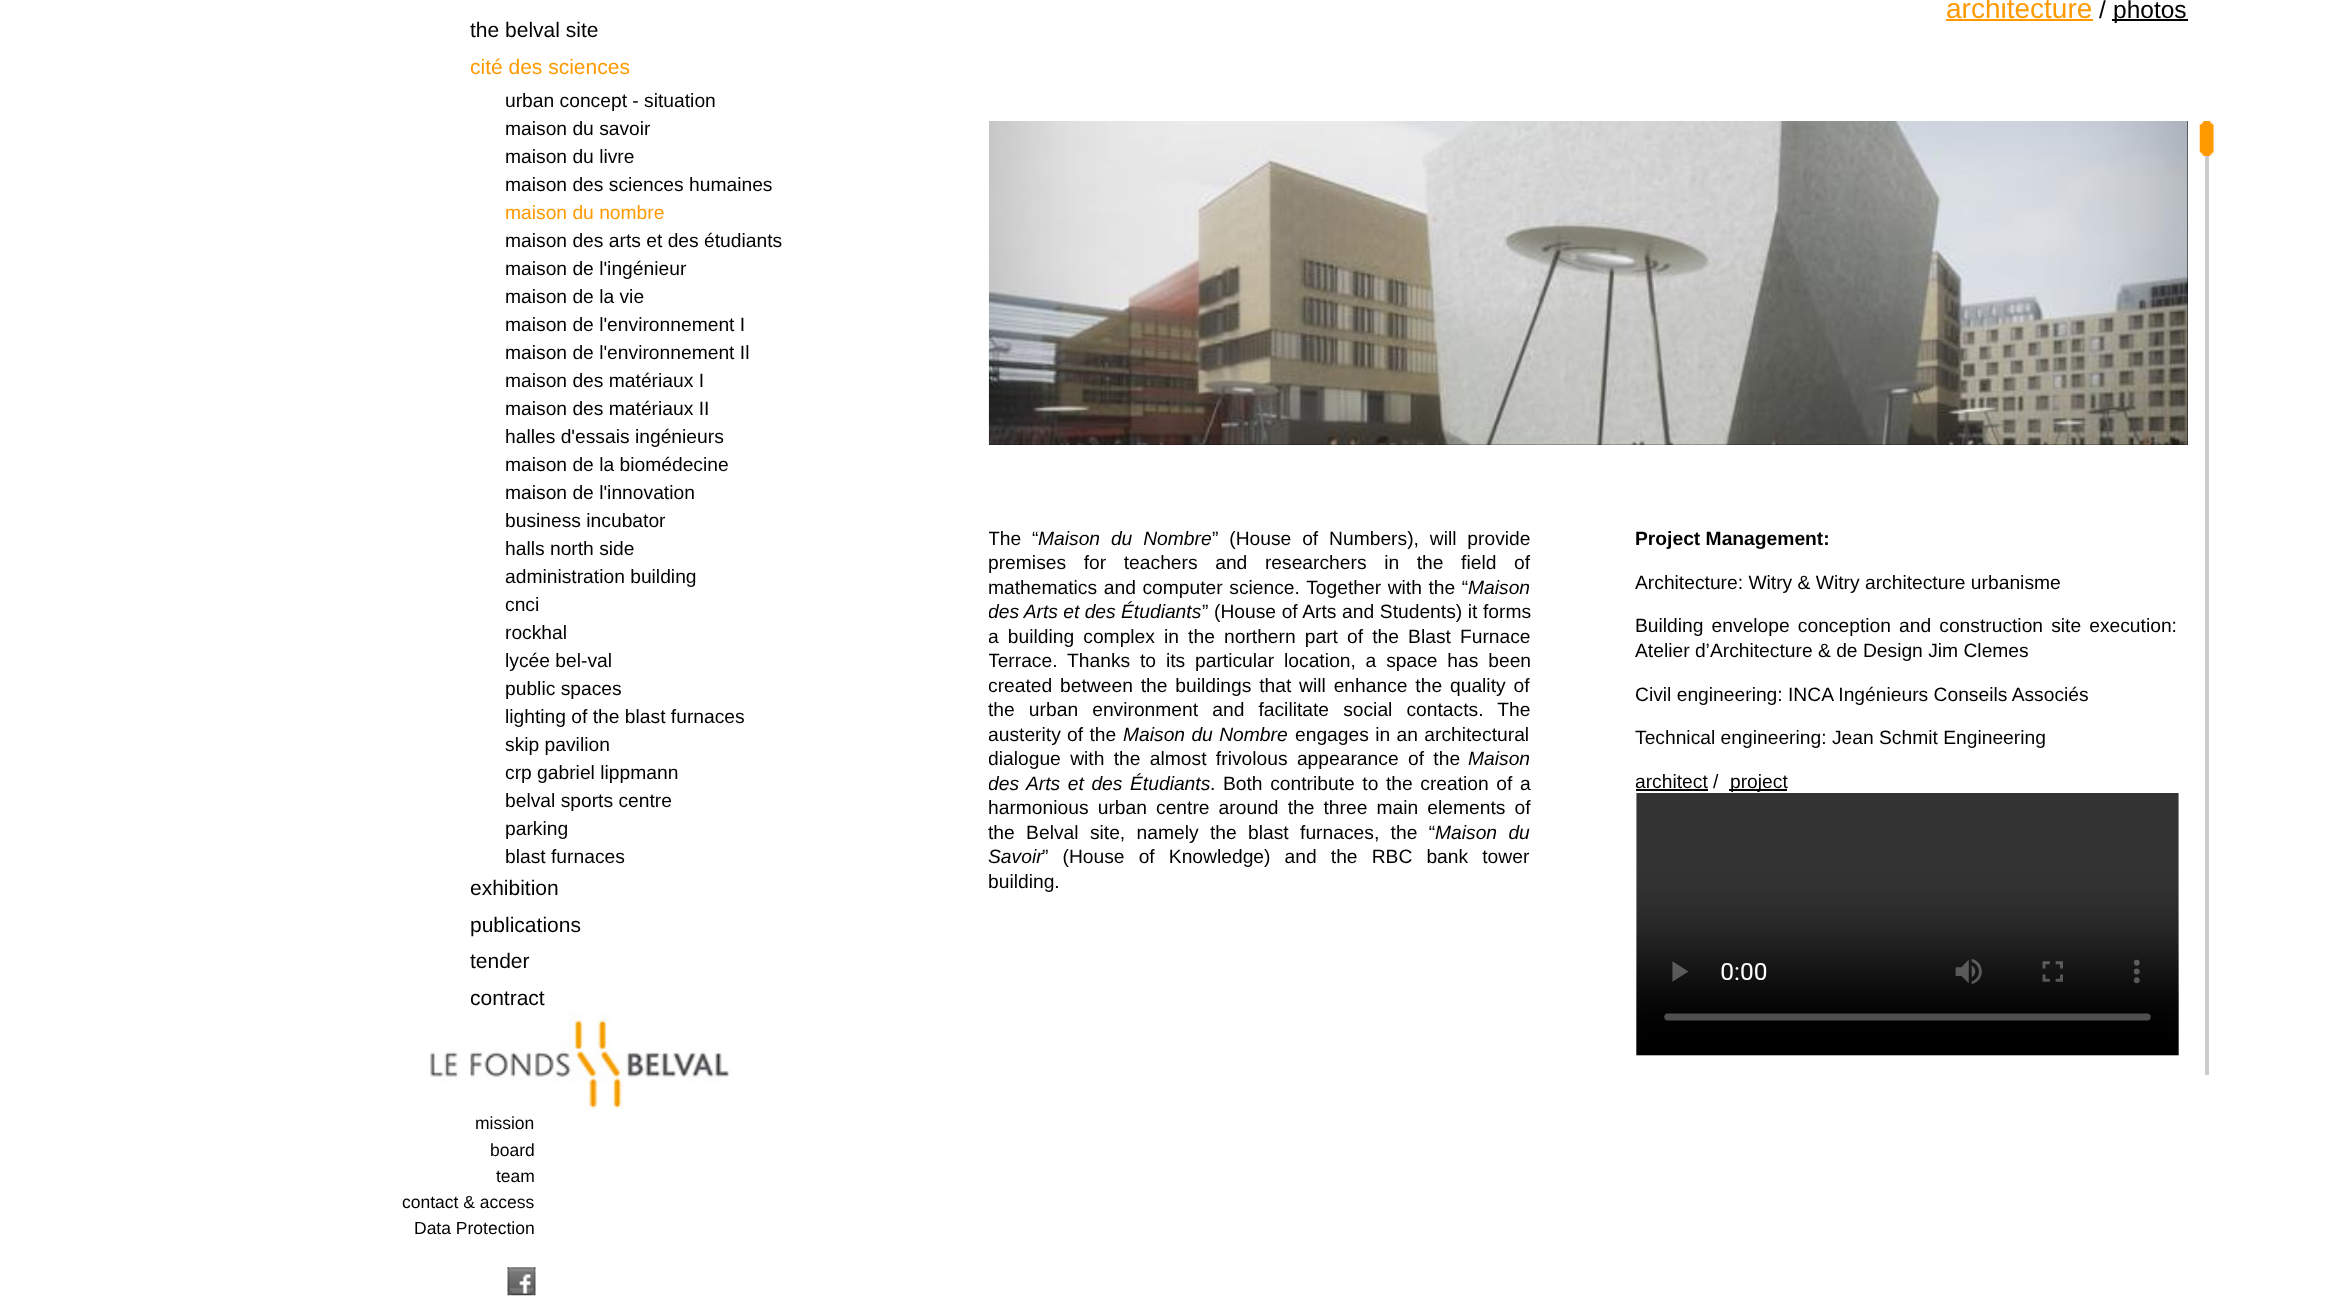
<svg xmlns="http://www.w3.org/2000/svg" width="2325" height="1302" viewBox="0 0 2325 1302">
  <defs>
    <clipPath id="clip1"><rect x="989" y="121" width="1225" height="954"/></clipPath>
  </defs>
  <rect width="100%" height="100%" fill="rgb(255,255,255)"/>
  <text x="470" y="37" font-family="Liberation Sans" font-size="21" fill="rgb(0,0,0)">the belval site</text>
  <text x="470" y="74" font-family="Liberation Sans" font-size="21" fill="rgb(255,153,0)">cité des sciences</text>
  <g font-family="Liberation Sans" font-size="19.25" fill="rgb(0,0,0)">
    <text>
      <tspan x="505" y="107">urban concept - situation</tspan>
      <tspan x="505" y="135">maison du savoir</tspan>
      <tspan x="505" y="163">maison du livre</tspan>
      <tspan x="505" y="191">maison des sciences humaines</tspan>
    </text>
  </g>
  <text x="505" y="219" font-family="Liberation Sans" font-size="19.25" fill="rgb(255,153,0)">maison du nombre</text>
  <g font-family="Liberation Sans" font-size="19.25" fill="rgb(0,0,0)">
    <text>
      <tspan x="505" y="247">maison des arts et des étudiants</tspan>
      <tspan x="505" y="275">maison de l'ingénieur</tspan>
      <tspan x="505" y="303">maison de la vie</tspan>
      <tspan x="505" y="331">maison de l'environnement I</tspan>
      <tspan x="505" y="359">maison de l'environnement Il</tspan>
      <tspan x="505" y="387">maison des matériaux I</tspan>
      <tspan x="505" y="415">maison des matériaux II</tspan>
      <tspan x="505" y="443">halles d'essais ingénieurs</tspan>
      <tspan x="505" y="471">maison de la biomédecine</tspan>
      <tspan x="505" y="499">maison de l'innovation</tspan>
      <tspan x="505" y="527">business incubator</tspan>
      <tspan x="505" y="555">halls north side</tspan>
      <tspan x="505" y="583">administration building</tspan>
      <tspan x="505" y="611">cnci</tspan>
      <tspan x="505" y="639">rockhal</tspan>
      <tspan x="505" y="667">lycée bel-val</tspan>
      <tspan x="505" y="695">public spaces</tspan>
      <tspan x="505" y="723">lighting of the blast furnaces</tspan>
      <tspan x="505" y="751">skip pavilion</tspan>
      <tspan x="505" y="779">crp gabriel lippmann</tspan>
      <tspan x="505" y="807">belval sports centre</tspan>
      <tspan x="505" y="835">parking</tspan>
      <tspan x="505" y="863">blast furnaces</tspan>
    </text>
  </g>
  <g font-family="Liberation Sans" font-size="21" fill="rgb(0,0,0)">
    <text>
      <tspan x="470" y="895">exhibition</tspan>
      <tspan x="470" y="932">publications</tspan>
      <tspan x="470" y="968">tender</tspan>
      <tspan x="470" y="1005">contract</tspan>
    </text>
  </g>
  <text x="1946" y="18" font-family="Liberation Sans" font-size="28" fill="rgb(255,153,0)">architecture</text>
  <rect x="1946" y="19" width="147" height="2" fill="rgb(255,153,0)"/>
  <text x="2099" y="18" font-family="Liberation Sans" font-size="24.5" fill="rgb(0,0,0)">/</text>
  <rect x="2112" y="19" width="76" height="2" fill="rgb(0,0,0)"/>
  <text x="2113" y="18" font-family="Liberation Sans" font-size="24.5" fill="rgb(0,0,0)">photos</text>
  <rect x="989" y="121" width="1199" height="324" fill="rgb(0,0,0)"/>
  <image x="988" y="121" width="1200" height="324" href="pic1.png"/>
  <g clip-path="url(#clip1)">
    <text x="988" y="545" word-spacing="5.5" font-family="Liberation Sans" font-size="19.25" fill="rgb(0,0,0)">The “</text>
  </g>
  <text x="1038" y="545" word-spacing="5.5" font-family="Liberation Sans" font-size="19.25" font-style="italic" fill="rgb(0,0,0)">Maison du Nombre</text>
  <g font-family="Liberation Sans" font-size="19.25" fill="rgb(0,0,0)">
    <text x="1212" y="545" word-spacing="5.5">” (House of Numbers), will provide</text>
    <text>
      <tspan x="988" y="569" word-spacing="12.25">premises for teachers and researchers in the field of</tspan>
      <tspan x="988" y="594" word-spacing="1.25">mathematics and computer science. Together with the “</tspan>
    </text>
  </g>
  <text x="1468" y="594" font-family="Liberation Sans" font-size="19.25" font-style="italic" fill="rgb(0,0,0)">Maison</text>
  <g clip-path="url(#clip1)">
    <text x="988" y="618" font-family="Liberation Sans" font-size="19.25" font-style="italic" fill="rgb(0,0,0)">des Arts et des Étudiants</text>
  </g>
  <text x="1202" y="618" word-spacing="0.25" font-family="Liberation Sans" font-size="19.25" fill="rgb(0,0,0)">” (House of Arts and Students) it forms</text>
  <g clip-path="url(#clip1)">
    <g font-family="Liberation Sans" font-size="19.25" fill="rgb(0,0,0)">
      <text>
        <tspan x="988" y="643" word-spacing="3.75">a building complex in the northern part of the Blast Furnace</tspan>
        <tspan x="988" y="667" word-spacing="4.5">Terrace. Thanks to its particular location, a space has been</tspan>
        <tspan x="988" y="692" word-spacing="2.5">created between the buildings that will enhance the quality of</tspan>
      </text>
    </g>
  </g>
  <text x="988" y="716" word-spacing="8.75" font-family="Liberation Sans" font-size="19.25" fill="rgb(0,0,0)">the urban environment and facilitate social contacts. The</text>
  <g clip-path="url(#clip1)">
    <text x="988" y="741" word-spacing="1" font-family="Liberation Sans" font-size="19.25" fill="rgb(0,0,0)">austerity of the</text>
  </g>
  <text x="1123" y="741" word-spacing="1" font-family="Liberation Sans" font-size="19.25" font-style="italic" fill="rgb(0,0,0)">Maison du Nombre</text>
  <text x="1295" y="741" word-spacing="1" font-family="Liberation Sans" font-size="19.25" fill="rgb(0,0,0)">engages in an architectural</text>
  <g clip-path="url(#clip1)">
    <text x="988" y="765" word-spacing="4" font-family="Liberation Sans" font-size="19.25" fill="rgb(0,0,0)">dialogue with the almost frivolous appearance of the</text>
  </g>
  <text x="1468" y="765" font-family="Liberation Sans" font-size="19.25" font-style="italic" fill="rgb(0,0,0)">Maison</text>
  <g clip-path="url(#clip1)">
    <text x="988" y="790" word-spacing="2.25" font-family="Liberation Sans" font-size="19.25" font-style="italic" fill="rgb(0,0,0)">des Arts et des Étudiants</text>
  </g>
  <g font-family="Liberation Sans" font-size="19.25" fill="rgb(0,0,0)">
    <text x="1210" y="790" word-spacing="2.25">. Both contribute to the creation of a</text>
    <text>
      <tspan x="988" y="814" word-spacing="3.75">harmonious urban centre around the three main elements of</tspan>
      <tspan x="988" y="839" word-spacing="6">the Belval site, namely the blast furnaces, the “</tspan>
    </text>
  </g>
  <g font-family="Liberation Sans" font-size="19.25" font-style="italic" fill="rgb(0,0,0)">
    <text x="1435" y="839" word-spacing="6">Maison du</text>
    <text x="988" y="863">Savoir</text>
  </g>
  <g font-family="Liberation Sans" font-size="19.25" fill="rgb(0,0,0)">
    <text x="1042" y="863" word-spacing="8.75">” (House of Knowledge) and the RBC bank tower</text>
    <text x="988" y="888">building.</text>
  </g>
  <text x="1635" y="545" font-family="Liberation Sans" font-size="19.25" font-weight="bold" fill="rgb(0,0,0)">Project Management:</text>
  <g font-family="Liberation Sans" font-size="19.25" fill="rgb(0,0,0)">
    <text x="1635" y="589">Architecture: Witry &amp; Witry architecture urbanisme</text>
    <text>
      <tspan x="1635" y="632" word-spacing="2.75">Building envelope conception and construction site execution:</tspan>
      <tspan x="1635" y="657">Atelier d’Architecture &amp; de Design Jim Clemes</tspan>
    </text>
    <text x="1635" y="701">Civil engineering: INCA Ingénieurs Conseils Associés</text>
    <text x="1635" y="744">Technical engineering: Jean Schmit Engineering</text>
    <text x="1635" y="788">architect /</text>
  </g>
  <rect x="1636" y="789" width="72" height="2" fill="rgb(0,0,0)"/>
  <rect x="1729" y="789" width="58" height="2" fill="rgb(0,0,0)"/>
  <text x="1730" y="788" font-family="Liberation Sans" font-size="19.25" fill="rgb(0,0,0)">project</text>
  <image x="1636" y="793" width="543" height="263" href="pic2.png"/>
  <rect x="2205" y="156" width="4" height="919" fill="rgb(204,204,204)"/>
  <image x="2199" y="121" width="15" height="35" href="pic3.png"/>
  <image x="430" y="1012" width="303" height="98" href="pic4.png"/>
  <g font-family="Liberation Sans" font-size="17.5" fill="rgb(0,0,0)">
    <text x="475" y="1129">mission</text>
    <text x="490" y="1156">board</text>
    <text x="496" y="1182">team</text>
    <text x="402" y="1208">contact &amp; access</text>
    <text x="414" y="1234">Data Protection</text>
  </g>
  <image x="507" y="1267" width="29" height="29" href="pic5.png"/>
</svg>
